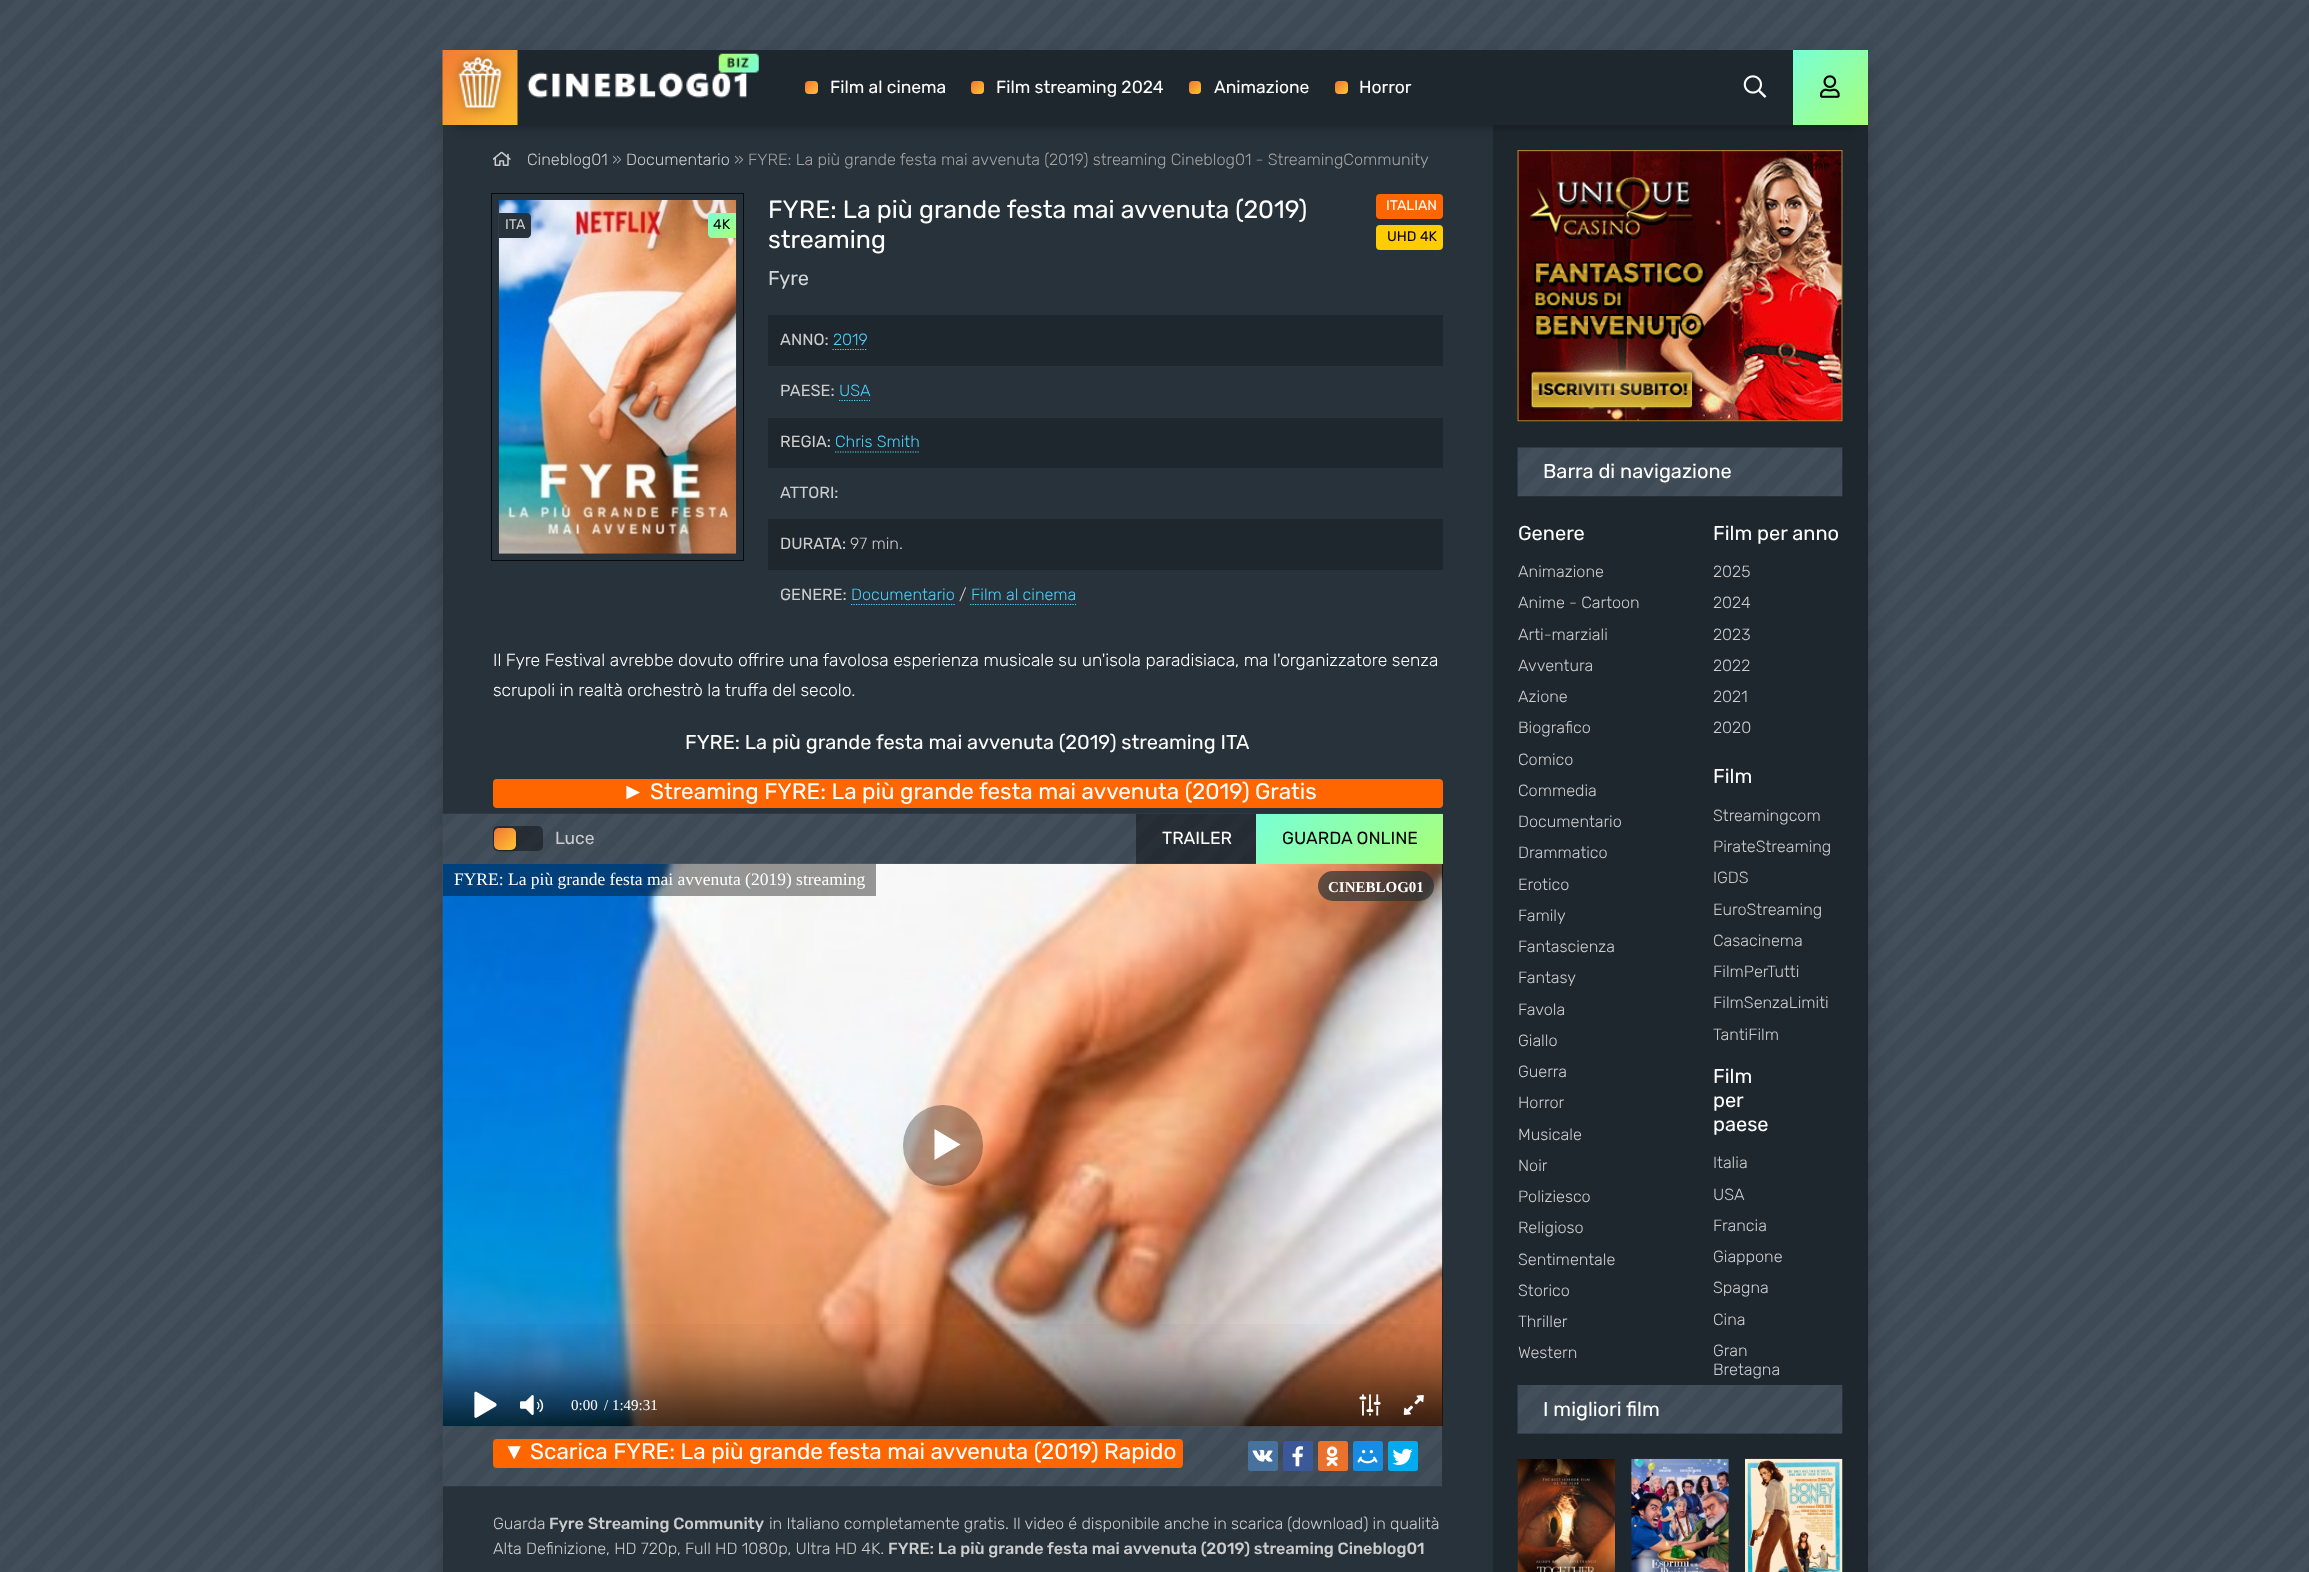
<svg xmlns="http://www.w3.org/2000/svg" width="2309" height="1572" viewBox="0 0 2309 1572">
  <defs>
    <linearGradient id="g1" gradientUnits="userSpaceOnUse" x1="805" y1="81" x2="818" y2="94"><stop offset="0" stop-color="rgb(243,115,53)"/><stop offset="1" stop-color="rgb(253,200,48)"/></linearGradient>
    <linearGradient id="g2" gradientUnits="userSpaceOnUse" x1="971" y1="81" x2="984" y2="94"><stop offset="0" stop-color="rgb(243,115,53)"/><stop offset="1" stop-color="rgb(253,200,48)"/></linearGradient>
    <linearGradient id="g3" gradientUnits="userSpaceOnUse" x1="1189" y1="81" x2="1201" y2="94"><stop offset="0" stop-color="rgb(243,115,53)"/><stop offset="1" stop-color="rgb(253,200,48)"/></linearGradient>
    <linearGradient id="g4" gradientUnits="userSpaceOnUse" x1="1335" y1="81" x2="1348" y2="94"><stop offset="0" stop-color="rgb(243,115,53)"/><stop offset="1" stop-color="rgb(253,200,48)"/></linearGradient>
    <linearGradient id="g5" gradientUnits="userSpaceOnUse" x1="1793" y1="50" x2="1868" y2="125"><stop offset="0" stop-color="rgb(120,255,214)"/><stop offset="1" stop-color="rgb(168,255,120)"/></linearGradient>
    <linearGradient id="g6" gradientUnits="userSpaceOnUse" x1="708" y1="212" x2="735" y2="238"><stop offset="0" stop-color="rgb(120,255,214)"/><stop offset="1" stop-color="rgb(168,255,120)"/></linearGradient>
    <linearGradient id="g7" gradientUnits="userSpaceOnUse" x1="494" y1="828" x2="516" y2="850"><stop offset="0" stop-color="rgb(243,115,53)"/><stop offset="1" stop-color="rgb(253,200,48)"/></linearGradient>
    <linearGradient id="g8" gradientUnits="userSpaceOnUse" x1="1290" y1="780" x2="1408" y2="898"><stop offset="0" stop-color="rgb(120,255,214)"/><stop offset="1" stop-color="rgb(168,255,120)"/></linearGradient>
  </defs>
  <rect width="100%" height="100%" fill="rgb(255,255,255)"/>
  <image x="0" y="0" width="2309" height="1572" href="pic1.png"/>
  <rect x="443" y="63" width="1425" height="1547" fill="rgba(0,0,0,0.2)" filter="blur(12.5px)"/>
  <rect x="443" y="125" width="1050" height="1447" fill="rgb(39,50,59)"/>
  <rect x="1493" y="125" width="375" height="1447" fill="rgb(30,39,46)"/>
  <rect x="455" y="75" width="1400" height="50" fill="rgba(0,0,0,0.4)" filter="blur(6px)"/>
  <rect x="517" y="50" width="1276" height="75" fill="rgb(30,39,46)"/>
  <image x="442" y="50" width="317" height="75" href="pic2.png"/>
  <rect x="805" y="81" width="13" height="13" rx="4" fill="url(#g1)"/>
  <text x="830" y="93" font-family="Rubik" font-size="17.5" fill="rgb(255,255,255)">Film al cinema</text>
  <rect x="971" y="81" width="13" height="13" rx="4" fill="url(#g2)"/>
  <text x="996" y="93" font-family="Rubik" font-size="17.5" fill="rgb(255,255,255)">Film streaming 2024</text>
  <rect x="1189" y="81" width="12" height="13" rx="4" fill="url(#g3)"/>
  <text x="1214" y="93" font-family="Rubik" font-size="17.5" fill="rgb(255,255,255)">Animazione</text>
  <rect x="1335" y="81" width="13" height="13" rx="4" fill="url(#g4)"/>
  <text x="1359" y="93" font-family="Rubik" font-size="17.5" fill="rgb(255,255,255)">Horror</text>
  <image x="1743" y="75" width="24" height="23" href="pic3.png"/>
  <rect x="1793" y="50" width="75" height="75" fill="url(#g5)"/>
  <image x="1820" y="75" width="20" height="23" href="pic4.png"/>
  <image x="493" y="151" width="18" height="15" href="pic5.png"/>
  <text x="527" y="165" font-family="Rubik" font-size="16.25" font-weight="300" fill="rgb(204,204,204)">Cineblog01</text>
  <text x="612" y="165" font-family="Rubik" font-size="16.25" font-weight="300" fill="rgb(163,163,163)">»</text>
  <text x="626" y="165" font-family="Rubik" font-size="16.25" font-weight="300" fill="rgb(204,204,204)">Documentario</text>
  <text x="734" y="165" font-family="Rubik" font-size="16.25" font-weight="300" fill="rgb(163,163,163)">» FYRE: La più grande festa mai avvenuta (2019) streaming Cineblog01 - StreamingCommunity</text>
  <g font-family="Rubik" font-size="25" fill="rgb(255,255,255)">
    <text>
      <tspan x="768" y="218">FYRE: La più grande festa mai avvenuta (2019)</tspan>
      <tspan x="768" y="248">streaming</tspan>
    </text>
  </g>
  <rect x="1377.5" y="195.5" width="64" height="22" rx="2.5" fill="rgb(255,102,0)" stroke="rgb(255,102,0)" stroke-width="3"/>
  <text x="1386" y="210" font-family="Rubik" font-size="14" fill="rgb(255,255,255)">ITALIAN</text>
  <rect x="1377.5" y="226.5" width="64" height="22" rx="2.5" fill="rgb(255,204,0)" stroke="rgb(255,204,0)" stroke-width="3"/>
  <text x="1387" y="241" font-family="Rubik" font-size="14" fill="rgb(0,0,0)">UHD 4K</text>
  <text x="768" y="285" font-family="Rubik" font-size="20" fill="rgb(212,214,216)">Fyre</text>
  <rect x="768" y="315" width="675" height="51" fill="rgb(30,39,46)"/>
  <text x="780" y="345" font-family="Rubik" font-size="16.25" fill="rgb(204,204,204)">ANNO:</text>
  <text x="833" y="345" font-family="Rubik" font-size="16.25" font-weight="300" fill="rgb(75,207,250)">2019</text>
  <path d="M832.5 349.5H867.5" fill="none" stroke="rgb(75,207,250)" stroke-width="1.2" stroke-dasharray="1.25 1.25"/>
  <text x="780" y="396" font-family="Rubik" font-size="16.25" fill="rgb(204,204,204)">PAESE:</text>
  <text x="839" y="396" font-family="Rubik" font-size="16.25" font-weight="300" fill="rgb(75,207,250)">USA</text>
  <path d="M839 400.5H870" fill="none" stroke="rgb(75,207,250)" stroke-width="1.2" stroke-dasharray="1.25 1.25"/>
  <rect x="768" y="418" width="675" height="50" fill="rgb(30,39,46)"/>
  <text x="780" y="447" font-family="Rubik" font-size="16.25" fill="rgb(204,204,204)">REGIA:</text>
  <text x="835" y="447" font-family="Rubik" font-size="16.25" font-weight="300" fill="rgb(75,207,250)">Chris Smith</text>
  <path d="M835 452H920" fill="none" stroke="rgb(75,207,250)" stroke-width="1.2" stroke-dasharray="1.25 1.25"/>
  <text x="780" y="498" font-family="Rubik" font-size="16.25" fill="rgb(204,204,204)">ATTORI:</text>
  <rect x="768" y="519" width="675" height="51" fill="rgb(30,39,46)"/>
  <text x="780" y="549" font-family="Rubik" font-size="16.25" fill="rgb(204,204,204)">DURATA:</text>
  <text x="850" y="549" font-family="Rubik" font-size="16.25" font-weight="300" fill="rgb(204,204,204)">97 min.</text>
  <text x="780" y="600" font-family="Rubik" font-size="16.25" fill="rgb(204,204,204)">GENERE:</text>
  <text x="851" y="600" font-family="Rubik" font-size="16.25" font-weight="300" fill="rgb(75,207,250)">Documentario</text>
  <path d="M851 604.5H955" fill="none" stroke="rgb(75,207,250)" stroke-width="1.2" stroke-dasharray="1.25 1.25"/>
  <text x="959" y="600" font-family="Rubik" font-size="16.25" font-weight="300" fill="rgb(204,204,204)">/</text>
  <text x="971" y="600" font-family="Rubik" font-size="16.25" font-weight="300" fill="rgb(75,207,250)">Film al cinema</text>
  <path d="M970 604.5H1076" fill="none" stroke="rgb(75,207,250)" stroke-width="1.2" stroke-dasharray="1.25 1.25"/>
  <g font-family="Rubik" font-size="17.5" font-weight="300" fill="rgb(255,255,255)">
    <text>
      <tspan x="493" y="666">Il Fyre Festival avrebbe dovuto offrire una favolosa esperienza musicale su un'isola paradisiaca, ma l'organizzatore senza</tspan>
      <tspan x="493" y="696">scrupoli in realtà orchestrò la truffa del secolo.</tspan>
    </text>
  </g>
  <rect x="491.5" y="193.5" width="252" height="367" fill="none" stroke="rgb(8,10,12)"/>
  <image x="498" y="200" width="239" height="354" href="pic6.png"/>
  <path d="M499 213H527C529 213 531 215 531 217V234C531 236 529 238 527 238H499Z" fill="rgb(39,50,59)"/>
  <text x="505" y="229" font-family="Rubik" font-size="14" fill="rgb(204,204,204)">ITA</text>
  <path d="M712 213H736V238H712C710 238 708 236 708 234V217C708 215 710 213 712 213Z" fill="url(#g6)"/>
  <text x="713" y="229" font-family="Rubik" font-size="14" fill="rgb(0,0,0)">4K</text>
  <text x="685" y="749" font-family="Rubik" font-size="20" fill="rgb(255,255,255)">FYRE: La più grande festa mai avvenuta (2019) streaming ITA</text>
  <rect x="494.5" y="780.5" width="947" height="26" rx="2.5" fill="rgb(255,102,0)" stroke="rgb(255,102,0)" stroke-width="3"/>
  <text x="622" y="799" font-family="Liberation Sans" font-size="22.5" fill="rgb(255,255,255)">►</text>
  <text x="650" y="799" font-family="Rubik" font-size="22.5" fill="rgb(255,255,255)">Streaming FYRE: La più grande festa mai avvenuta (2019) Gratis</text>
  <rect x="1442" y="1426" width="1" height="60" fill="rgb(18,23,27)"/>
  <image x="442" y="813" width="1001" height="674" href="pic7.png"/>
  <rect x="493" y="826" width="50" height="25" rx="5" fill="rgba(0,0,0,0.4)"/>
  <rect x="494" y="829" width="22" height="22" rx="5" fill="rgba(0,0,0,0.3)" filter="blur(1px)"/>
  <rect x="494" y="828" width="22" height="22" rx="5" fill="url(#g7)"/>
  <text x="555" y="844" font-family="Rubik" font-size="17.5" fill="rgb(204,204,204)">Luce</text>
  <rect x="1136" y="814" width="120" height="50" fill="rgba(0,0,0,0.4)"/>
  <text x="1162" y="844" font-family="Rubik" font-size="17.5" fill="rgb(255,255,255)">TRAILER</text>
  <rect x="1256" y="814" width="187" height="50" fill="url(#g8)"/>
  <text x="1282" y="844" font-family="Rubik" font-size="17.5" fill="rgb(0,0,0)">GUARDA ONLINE</text>
  <rect x="1442" y="864" width="1" height="562" fill="rgb(0,0,0)"/>
  <image x="442" y="863" width="1001" height="564" href="pic8.png"/>
  <rect x="443" y="864" width="433" height="32" fill="rgba(0,0,0,0.4)"/>
  <text x="454" y="885" font-family="Liberation Serif" font-size="17.5" fill="rgb(255,255,255)">FYRE: La più grande festa mai avvenuta (2019) streaming</text>
  <rect x="1318" y="871" width="116" height="30" rx="15" fill="rgba(42,49,52,0.7)"/>
  <text x="1328" y="892" font-family="Liberation Serif" font-size="15" font-weight="bold" fill="rgb(255,255,255)">CINEBLOG01</text>
  <rect x="903" y="1105" width="80" height="81" rx="40" fill="rgba(0,0,0,0.3)"/>
  <path d="M934.5 1129V1160L960.5 1144.5L934.5 1129" fill="rgb(255,255,255)"/>
  <image x="442" y="1324" width="1001" height="103" href="pic9.png"/>
  <image x="474" y="1391" width="23" height="27" href="pic10.png"/>
  <image x="520" y="1395" width="24" height="20" href="pic11.png"/>
  <g font-family="Liberation Serif" font-size="15" fill="rgb(255,255,255)">
    <text x="571" y="1410">0:00</text>
    <text x="604" y="1410">/ 1:49:31</text>
  </g>
  <image x="1359" y="1394" width="22" height="22" href="pic12.png"/>
  <image x="1403" y="1395" width="21" height="20" href="pic13.png"/>
  <rect x="494.5" y="1440.5" width="687" height="26" rx="2.5" fill="rgb(255,102,0)" stroke="rgb(255,102,0)" stroke-width="3"/>
  <text x="503" y="1459" font-family="Liberation Sans" font-size="22.5" fill="rgb(255,255,255)">▼</text>
  <text x="530" y="1459" font-family="Rubik" font-size="22.5" fill="rgb(255,255,255)">Scarica FYRE: La più grande festa mai avvenuta (2019) Rapido</text>
  <rect x="1248" y="1441" width="30" height="30" rx="2.5" fill="rgb(72,114,158)"/>
  <image x="1252" y="1450" width="21" height="12" href="pic14.png"/>
  <rect x="1283" y="1441" width="30" height="30" rx="2.5" fill="rgb(59,89,152)"/>
  <image x="1292" y="1446" width="11" height="21" href="pic15.png"/>
  <rect x="1318" y="1441" width="30" height="30" rx="2.5" fill="rgb(235,114,46)"/>
  <image x="1326" y="1446" width="12" height="21" href="pic16.png"/>
  <rect x="1353" y="1441" width="30" height="30" rx="2.5" fill="rgb(22,141,226)"/>
  <image x="1357" y="1450" width="21" height="14" href="pic17.png"/>
  <rect x="1388" y="1441" width="30" height="30" rx="2.5" fill="rgb(0,172,237)"/>
  <image x="1392" y="1448" width="21" height="17" href="pic18.png"/>
  <text x="493" y="1529" font-family="Rubik" font-size="16.25" font-weight="300" fill="rgb(204,204,204)">Guarda</text>
  <text x="549" y="1529" font-family="Rubik" font-size="16.25" font-weight="500" fill="rgb(204,204,204)">Fyre Streaming Community</text>
  <g font-family="Rubik" font-size="16.25" font-weight="300" fill="rgb(204,204,204)">
    <text x="769" y="1529">in Italiano completamente gratis. Il video é disponibile anche in scarica (download) in qualità</text>
    <text x="493" y="1554">Alta Definizione, HD 720p, Full HD 1080p, Ultra HD 4K.</text>
  </g>
  <text x="888" y="1554" font-family="Rubik" font-size="16.25" font-weight="500" fill="rgb(204,204,204)">FYRE: La più grande festa mai avvenuta (2019) streaming Cineblog01</text>
  <image x="1517" y="150" width="326" height="272" href="pic19.png"/>
  <rect x="1842" y="448" width="1" height="48" fill="rgb(18,23,27)"/>
  <image x="1517" y="447" width="326" height="50" href="pic20.png"/>
  <g font-family="Rubik" font-size="20" fill="rgb(255,255,255)">
    <text x="1543" y="478">Barra di navigazione</text>
    <text x="1518" y="540">Genere</text>
  </g>
  <g font-family="Rubik" font-size="16.25" font-weight="300" fill="rgb(204,204,204)">
    <text>
      <tspan x="1518" y="577">Animazione</tspan>
      <tspan x="1518" y="608">Anime - Cartoon</tspan>
      <tspan x="1518" y="640">Arti-marziali</tspan>
      <tspan x="1518" y="671">Avventura</tspan>
      <tspan x="1518" y="702">Azione</tspan>
      <tspan x="1518" y="733">Biografico</tspan>
      <tspan x="1518" y="765">Comico</tspan>
      <tspan x="1518" y="796">Commedia</tspan>
      <tspan x="1518" y="827">Documentario</tspan>
      <tspan x="1518" y="858">Drammatico</tspan>
      <tspan x="1518" y="890">Erotico</tspan>
      <tspan x="1518" y="921">Family</tspan>
      <tspan x="1518" y="952">Fantascienza</tspan>
      <tspan x="1518" y="983">Fantasy</tspan>
      <tspan x="1518" y="1015">Favola</tspan>
      <tspan x="1518" y="1046">Giallo</tspan>
      <tspan x="1518" y="1077">Guerra</tspan>
      <tspan x="1518" y="1108">Horror</tspan>
      <tspan x="1518" y="1140">Musicale</tspan>
      <tspan x="1518" y="1171">Noir</tspan>
      <tspan x="1518" y="1202">Poliziesco</tspan>
      <tspan x="1518" y="1233">Religioso</tspan>
      <tspan x="1518" y="1265">Sentimentale</tspan>
      <tspan x="1518" y="1296">Storico</tspan>
      <tspan x="1518" y="1327">Thriller</tspan>
      <tspan x="1518" y="1358">Western</tspan>
    </text>
  </g>
  <text x="1713" y="540" font-family="Rubik" font-size="20" fill="rgb(255,255,255)">Film per anno</text>
  <g font-family="Rubik" font-size="16.25" font-weight="300" fill="rgb(204,204,204)">
    <text>
      <tspan x="1713" y="577">2025</tspan>
      <tspan x="1713" y="608">2024</tspan>
      <tspan x="1713" y="640">2023</tspan>
      <tspan x="1713" y="671">2022</tspan>
      <tspan x="1713" y="702">2021</tspan>
      <tspan x="1713" y="733">2020</tspan>
    </text>
  </g>
  <text x="1713" y="783" font-family="Rubik" font-size="20" fill="rgb(255,255,255)">Film</text>
  <g font-family="Rubik" font-size="16.25" font-weight="300" fill="rgb(204,204,204)">
    <text>
      <tspan x="1713" y="821">Streamingcom</tspan>
      <tspan x="1713" y="852">PirateStreaming</tspan>
      <tspan x="1713" y="883">IGDS</tspan>
      <tspan x="1713" y="915">EuroStreaming</tspan>
      <tspan x="1713" y="946">Casacinema</tspan>
      <tspan x="1713" y="977">FilmPerTutti</tspan>
      <tspan x="1713" y="1008">FilmSenzaLimiti</tspan>
      <tspan x="1713" y="1040">TantiFilm</tspan>
    </text>
  </g>
  <g font-family="Rubik" font-size="20" fill="rgb(255,255,255)">
    <text>
      <tspan x="1713" y="1083">Film</tspan>
      <tspan x="1713" y="1107">per</tspan>
      <tspan x="1713" y="1131">paese</tspan>
    </text>
  </g>
  <g font-family="Rubik" font-size="16.25" font-weight="300" fill="rgb(204,204,204)">
    <text>
      <tspan x="1713" y="1168">Italia</tspan>
      <tspan x="1713" y="1200">USA</tspan>
      <tspan x="1713" y="1231">Francia</tspan>
      <tspan x="1713" y="1262">Giappone</tspan>
      <tspan x="1713" y="1293">Spagna</tspan>
      <tspan x="1713" y="1325">Cina</tspan>
      <tspan x="1713" y="1356">Gran</tspan>
      <tspan x="1713" y="1375">Bretagna</tspan>
    </text>
  </g>
  <rect x="1518" y="1385" width="325" height="49" fill="rgb(18,23,27)"/>
  <image x="1517" y="1385" width="326" height="49" href="pic21.png"/>
  <text x="1543" y="1416" font-family="Rubik" font-size="20" fill="rgb(255,255,255)">I migliori film</text>
  <image x="1517" y="1459" width="98" height="113" href="pic22.png"/>
  <image x="1631" y="1458" width="98" height="114" href="pic23.png"/>
  <image x="1745" y="1458" width="98" height="114" href="pic24.png"/>
</svg>
